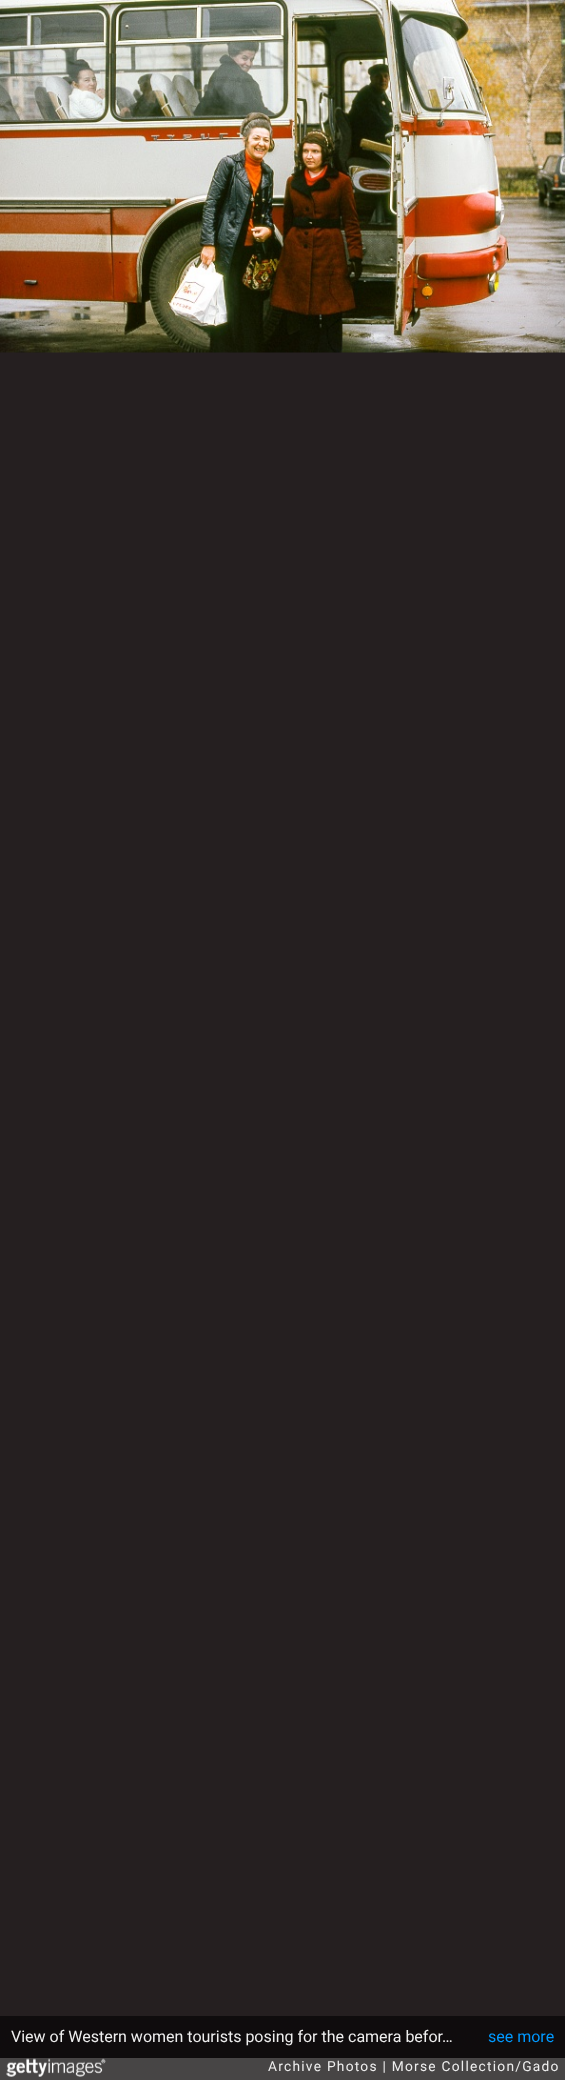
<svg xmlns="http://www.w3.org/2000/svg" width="565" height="2080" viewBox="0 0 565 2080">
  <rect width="100%" height="100%" fill="rgb(37,31,32)"/>
  <image x="0" y="0" width="565" height="353" href="pic1.png"/>
  <rect x="0" y="2016" width="565" height="42" fill="rgb(15,12,13)"/>
  <text x="11" y="2042" font-family="Roboto" font-size="16" fill="rgb(238,238,238)">View of Western women tourists posing for the camera befor…</text>
  <text x="488" y="2042" font-family="Roboto" font-size="16" fill="rgb(0,153,255)">see more</text>
  <rect x="0" y="2058" width="565" height="22" fill="rgb(71,69,69)"/>
  <image x="6" y="2058" width="100" height="19" href="pic2.png"/>
  <text x="268" y="2071" font-family="Roboto" font-size="13.75" letter-spacing="1.25" fill="rgb(238,238,238)">Archive Photos | Morse Collection/Gado</text>
</svg>
